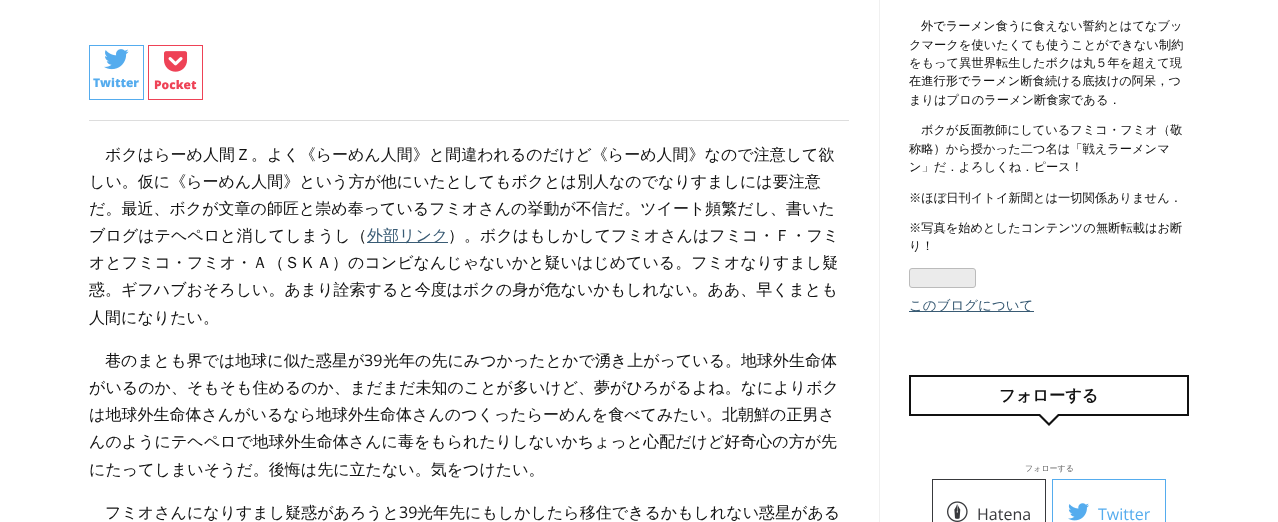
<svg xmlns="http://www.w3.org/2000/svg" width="1278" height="522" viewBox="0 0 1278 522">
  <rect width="100%" height="100%" fill="rgb(255,255,255)"/>
  <rect x="879" y="0" width="1" height="522" fill="rgb(240,240,240)"/>
  <rect x="89" y="120" width="760" height="1" fill="rgb(221,221,221)"/>
  <rect x="89.5" y="45.5" width="54" height="54" fill="none" stroke="rgb(85,172,238)"/>
  <image x="104" y="49" width="25" height="21" href="pic1.png"/>
  <text x="93" y="87" font-family="Open Sans" font-size="12" font-weight="800" fill="rgb(85,172,238)">Twitter</text>
  <rect x="148.5" y="45.5" width="54" height="54" fill="none" stroke="rgb(238,66,86)"/>
  <image x="164" y="51" width="24" height="21" href="pic2.png"/>
  <text x="154" y="89" font-family="Open Sans" font-size="12" font-weight="800" fill="rgb(238,66,86)">Pocket</text>
  <g font-family="WenQuanYi Zen Hei" font-size="16" font-weight="500" fill="rgb(17,17,17)">
    <text x="105" y="160">ボクはらーめ人間Ｚ。よく《らーめん人間》と間違われるのだけど《らーめ人間》なので注意して欲</text>
    <text>
      <tspan x="89" y="187">しい。仮に《らーめん人間》という方が他にいたとしてもボクとは別人なのでなりすましには要注意</tspan>
      <tspan x="89" y="214">だ。最近、ボクが文章の師匠と崇め奉っているフミオさんの挙動が不信だ。ツイート頻繁だし、書いた</tspan>
      <tspan x="89" y="241">ブログはテヘペロと消してしまうし（</tspan>
    </text>
  </g>
  <rect x="367" y="242" width="81" height="1" fill="rgb(57,91,116)"/>
  <text x="367" y="241" font-family="WenQuanYi Zen Hei" font-size="16" font-weight="500" fill="rgb(57,91,116)">外部リンク</text>
  <g font-family="WenQuanYi Zen Hei" font-size="16" font-weight="500" fill="rgb(17,17,17)">
    <text x="448" y="241">）。ボクはもしかしてフミオさんはフミコ・Ｆ・フミ</text>
    <text>
      <tspan x="89" y="268">オとフミコ・フミオ・Ａ（ＳＫＡ）のコンビなんじゃないかと疑いはじめている。フミオなりすまし疑</tspan>
      <tspan x="89" y="295">惑。ギフハブおそろしい。あまり詮索すると今度はボクの身が危ないかもしれない。ああ、早くまとも</tspan>
      <tspan x="89" y="323">人間になりたい。</tspan>
    </text>
    <text x="105" y="366">巷のまとも界では地球に似た惑星が</text>
  </g>
  <text x="364" y="366" font-family="Open Sans" font-size="16" fill="rgb(17,17,17)">39</text>
  <g font-family="WenQuanYi Zen Hei" font-size="16" font-weight="500" fill="rgb(17,17,17)">
    <text x="383" y="366">光年の先にみつかったとかで湧き上がっている。地球外生命体</text>
    <text>
      <tspan x="89" y="393">がいるのか、そもそも住めるのか、まだまだ未知のことが多いけど、夢がひろがるよね。なによりボク</tspan>
      <tspan x="89" y="420">は地球外生命体さんがいるなら地球外生命体さんのつくったらーめんを食べてみたい。北朝鮮の正男さ</tspan>
      <tspan x="89" y="447">んのようにテヘペロで地球外生命体さんに毒をもられたりしないかちょっと心配だけど好奇心の方が先</tspan>
      <tspan x="89" y="475">にたってしまいそうだ。後悔は先に立たない。気をつけたい。</tspan>
    </text>
    <text x="105" y="518">フミオさんになりすまし疑惑があろうと</text>
  </g>
  <text x="399" y="518" font-family="Open Sans" font-size="16" fill="rgb(17,17,17)">39</text>
  <text x="417" y="518" font-family="WenQuanYi Zen Hei" font-size="16" font-weight="500" fill="rgb(17,17,17)">光年先にもしかしたら移住できるかもしれない惑星がある</text>
  <g font-family="WenQuanYi Zen Hei" font-size="12.25" font-weight="500" fill="rgb(17,17,17)">
    <text x="921" y="30">外でラーメン食うに食えない誓約とはてなブッ</text>
    <text>
      <tspan x="909" y="49">クマークを使いたくても使うことができない制約</tspan>
      <tspan x="909" y="67">をもって異世界転生したボクは丸５年を超えて現</tspan>
      <tspan x="909" y="85">在進行形でラーメン断食続ける底抜けの阿呆，つ</tspan>
      <tspan x="909" y="104">まりはプロのラーメン断食家である．</tspan>
    </text>
    <text x="921" y="134">ボクが反面教師にしているフミコ・フミオ（敬</text>
    <text>
      <tspan x="909" y="153">称略）から授かった二つ名は「戦えラーメンマ</tspan>
      <tspan x="909" y="171">ン」だ．よろしくね．ピース！</tspan>
    </text>
    <text x="909" y="202">※ほぼ日刊イトイ新聞とは一切関係ありません．</text>
    <text>
      <tspan x="909" y="232">※写真を始めとしたコンテンツの無断転載はお断</tspan>
      <tspan x="909" y="250">り！</tspan>
    </text>
  </g>
  <rect x="909.5" y="268.5" width="66" height="19" rx="2.5" fill="rgb(235,235,235)" stroke="rgb(187,187,187)"/>
  <rect x="909" y="311" width="125" height="1" fill="rgb(57,91,116)"/>
  <text x="909" y="310" font-family="WenQuanYi Zen Hei" font-size="13.5" font-weight="500" fill="rgb(57,91,116)">このブログについて</text>
  <rect x="910" y="376" width="278" height="39" fill="none" stroke="rgb(17,17,17)" stroke-width="2"/>
  <text x="999" y="401" font-family="WenQuanYi Zen Hei" font-size="16.25" font-weight="bold" fill="rgb(17,17,17)">フォローする</text>
  <path d="M1037 414H1061L1049 426Z" fill="rgb(17,17,17)"/>
  <path d="M1040 414H1058L1049 423Z" fill="rgb(255,255,255)"/>
  <text x="1025" y="471" font-family="WenQuanYi Zen Hei" font-size="8" font-weight="500" fill="rgb(102,102,102)">フォローする</text>
  <rect x="932.5" y="479.5" width="113" height="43" fill="none" stroke="rgb(56,57,60)"/>
  <image x="947" y="501" width="21" height="21" href="pic3.png"/>
  <text x="977" y="520" font-family="Open Sans" font-size="16" fill="rgb(56,57,60)">Hatena</text>
  <rect x="1052.5" y="479.5" width="113" height="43" fill="none" stroke="rgb(85,172,238)"/>
  <image x="1068" y="503" width="21" height="18" href="pic4.png"/>
  <text x="1098" y="520" font-family="Open Sans" font-size="16" fill="rgb(85,172,238)">Twitter</text>
</svg>
